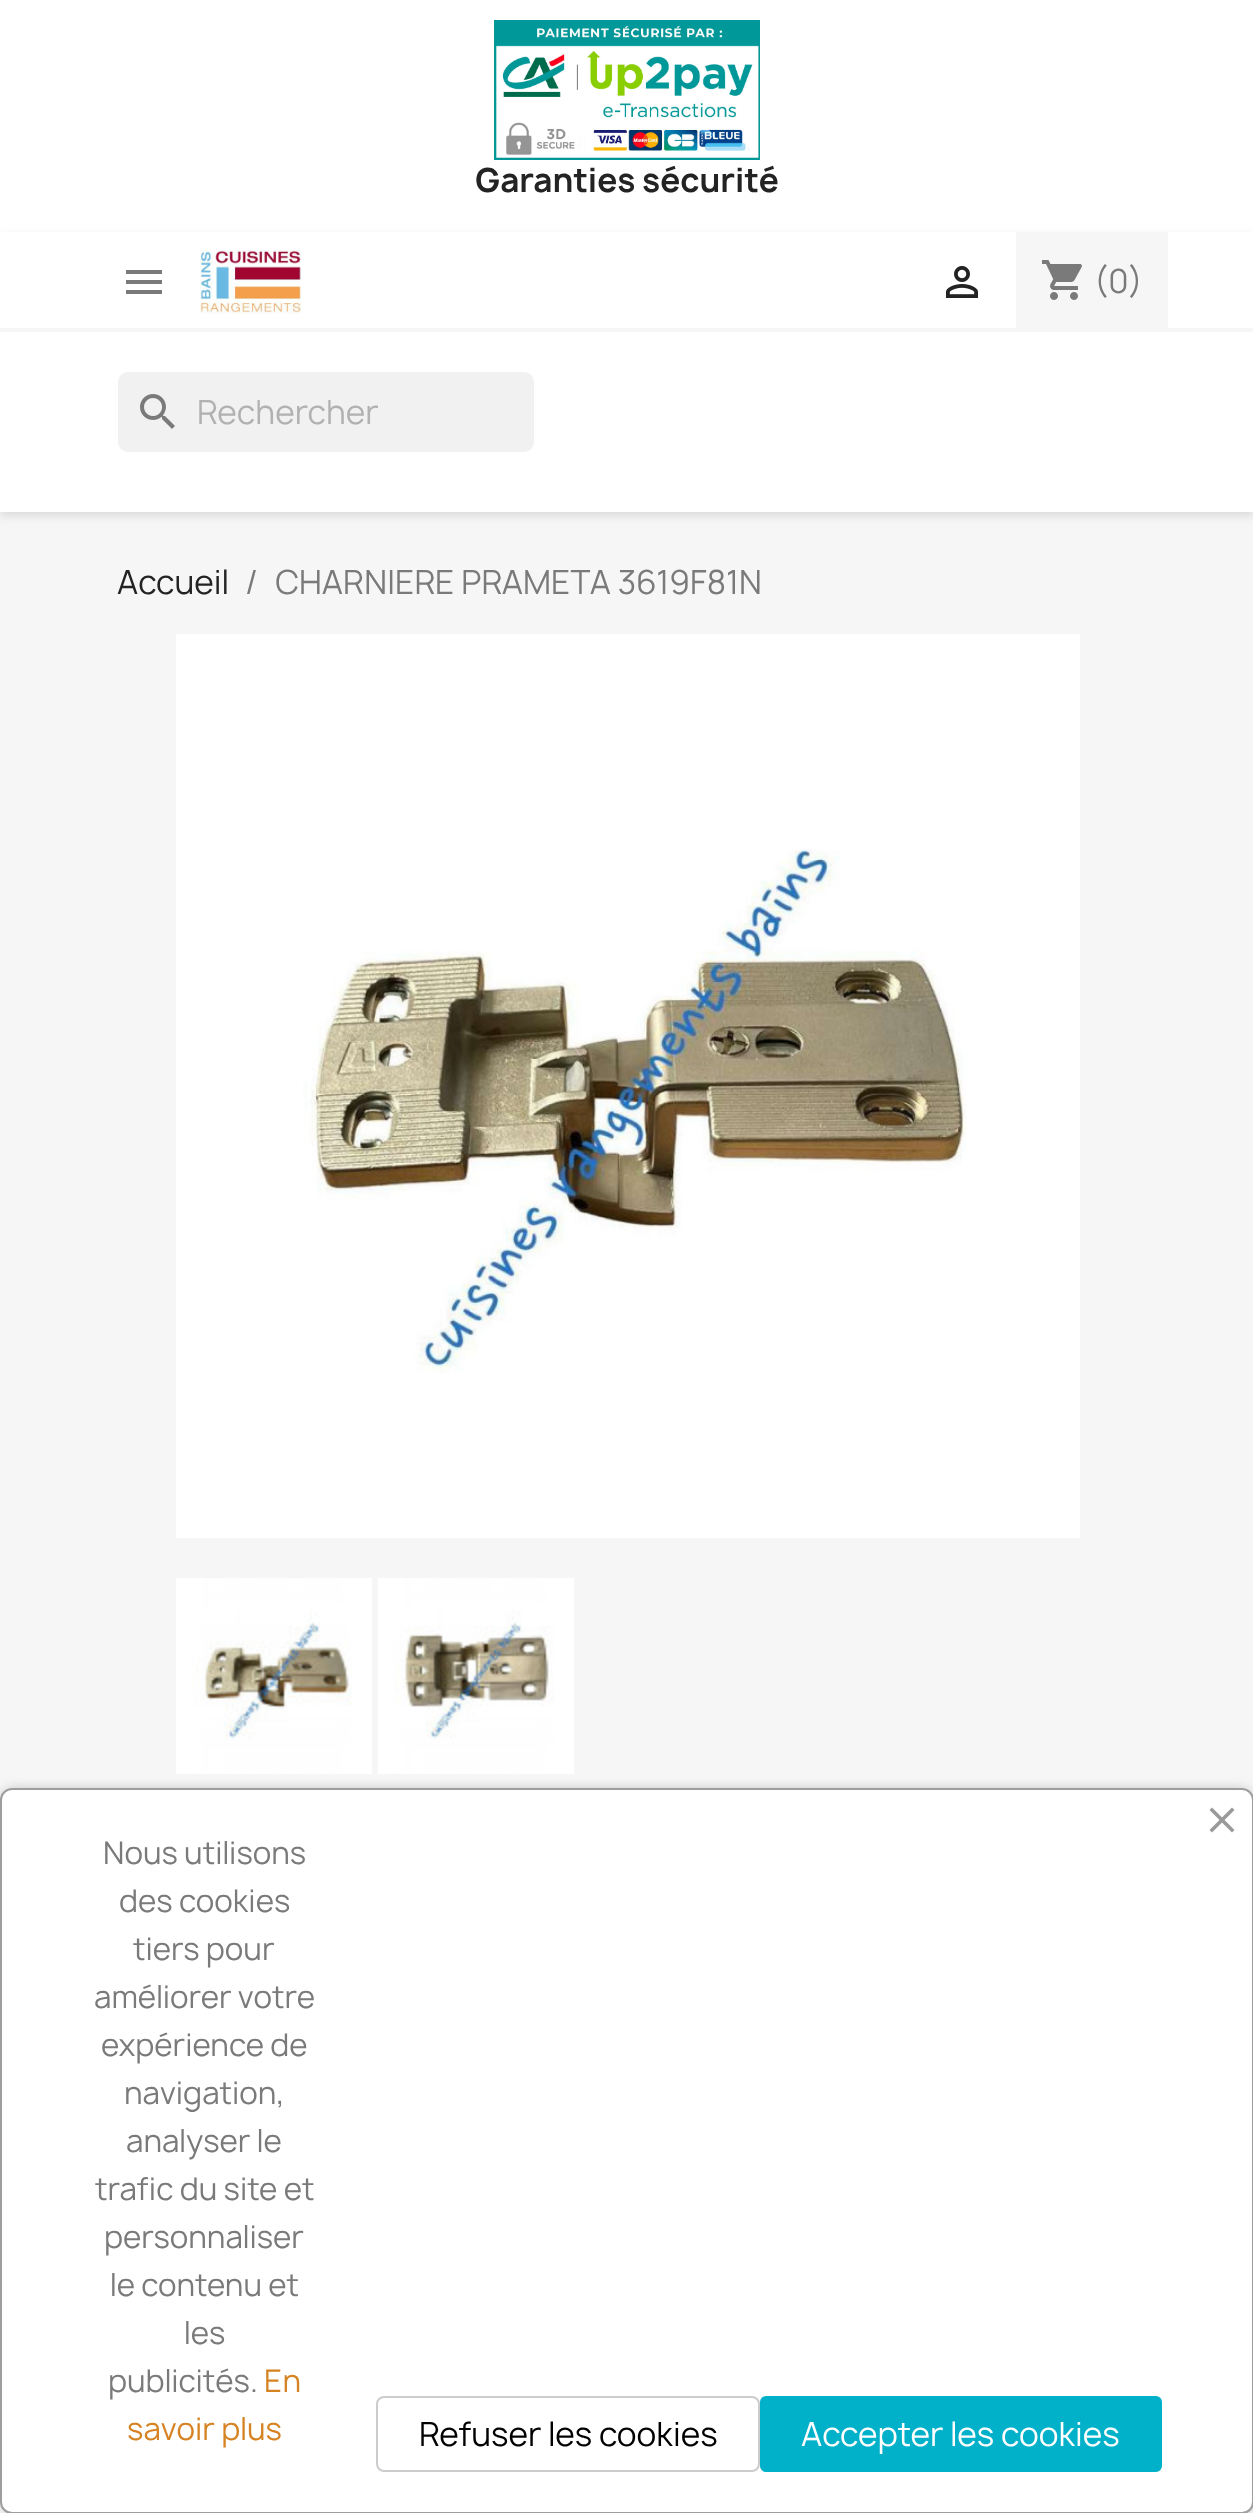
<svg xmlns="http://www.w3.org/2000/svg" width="1253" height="2513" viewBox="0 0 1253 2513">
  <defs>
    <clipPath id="clip1"><path d="M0 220H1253V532H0ZM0 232H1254V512H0Z" clip-rule="evenodd"/></clipPath>
  </defs>
  <rect width="100%" height="100%" fill="rgb(255,255,255)"/>
  <image x="494" y="20" width="266" height="140" href="pic1.png"/>
  <text x="475" y="192" font-family="Manrope" font-size="32" font-weight="bold" fill="rgb(35,35,35)">Garanties sécurité</text>
  <rect x="0" y="512" width="1253" height="2001" fill="rgb(246,246,246)"/>
  <g clip-path="url(#clip1)">
    <rect x="0" y="236" width="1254" height="280" fill="rgba(0,0,0,0.11)" filter="blur(5px)"/>
  </g>
  <rect x="0" y="328" width="1253" height="4" fill="rgb(246,246,246)"/>
  <path d="M126 270H162V274H126ZM126 284V280H162V284ZM126 294V290H162V294Z" fill="rgb(122,122,122)"/>
  <image x="200" y="250" width="102" height="64" href="pic2.png"/>
  <image x="945" y="266" width="34" height="32" href="pic3.png"/>
  <rect x="1016" y="232" width="152" height="96" fill="rgb(246,246,246)"/>
  <image x="1042" y="260" width="40" height="40" href="pic4.png"/>
  <text x="1094" y="293" font-family="Manrope" font-size="32" fill="rgb(122,122,122)">(0)</text>
  <rect x="118" y="372" width="416" height="80" rx="10" fill="rgb(241,241,241)"/>
  <image x="140" y="394" width="35" height="35" href="pic5.png"/>
  <text x="197" y="424" font-family="Manrope" font-size="32" fill="rgb(177,177,177)">Rechercher</text>
  <text x="117" y="594" font-family="Manrope" font-size="32" fill="rgb(35,35,35)">Accueil</text>
  <g font-family="Manrope" font-size="32" fill="rgb(122,122,122)">
    <text x="245" y="594">/</text>
    <text x="275" y="594">CHARNIERE PRAMETA 3619F81N</text>
  </g>
  <rect x="176" y="634" width="904" height="904" fill="rgb(255,255,255)"/>
  <image x="303" y="849" width="664" height="524" href="pic6.png"/>
  <image x="176" y="1578" width="196" height="196" href="pic7.png"/>
  <image x="378" y="1578" width="196" height="196" href="pic8.png"/>
  <rect x="4" y="1792" width="1246" height="718" rx="8" fill="rgb(158,158,158)" filter="blur(7px)"/>
  <rect x="1" y="1789" width="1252" height="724" rx="11" fill="rgb(255,255,255)" stroke="rgb(158,158,158)" stroke-width="2"/>
  <path d="M1209.5 1830L1232 1807.5L1234.5 1810L1212 1832.5Z" fill="rgb(153,153,153)"/>
  <path d="M1212 1807.5L1234.5 1830L1232 1832.5L1209.5 1810Z" fill="rgb(153,153,153)"/>
  <g font-family="Manrope" font-size="30" fill="rgb(122,122,122)">
    <text x="103" y="1864">Nous utilisons</text>
    <text x="119" y="1912">des cookies</text>
    <text x="133" y="1960">tiers pour</text>
    <text x="94" y="2008">améliorer votre</text>
    <text x="101" y="2056">expérience de</text>
    <text x="124" y="2104">navigation,</text>
    <text x="126" y="2152">analyser le</text>
    <text x="95" y="2200">trafic du site et</text>
    <text x="104" y="2248">personnaliser</text>
    <text x="110" y="2296">le contenu et</text>
    <text x="184" y="2344">les</text>
    <text x="108" y="2392">publicités.</text>
  </g>
  <g font-family="Manrope" font-size="30" fill="rgb(214,131,36)">
    <text x="264" y="2392">En</text>
    <text x="127" y="2440">savoir plus</text>
  </g>
  <rect x="377" y="2397" width="382" height="74" rx="7" fill="none" stroke="rgb(204,204,204)" stroke-width="2"/>
  <text x="419" y="2446" font-family="Manrope" font-size="32" fill="rgb(0,0,0)">Refuser les cookies</text>
  <rect x="761" y="2397" width="400" height="74" rx="5" fill="rgb(0,177,201)" stroke="rgb(0,177,201)" stroke-width="2"/>
  <text x="801" y="2446" font-family="Manrope" font-size="32" fill="rgb(255,255,255)">Accepter les cookies</text>
</svg>
